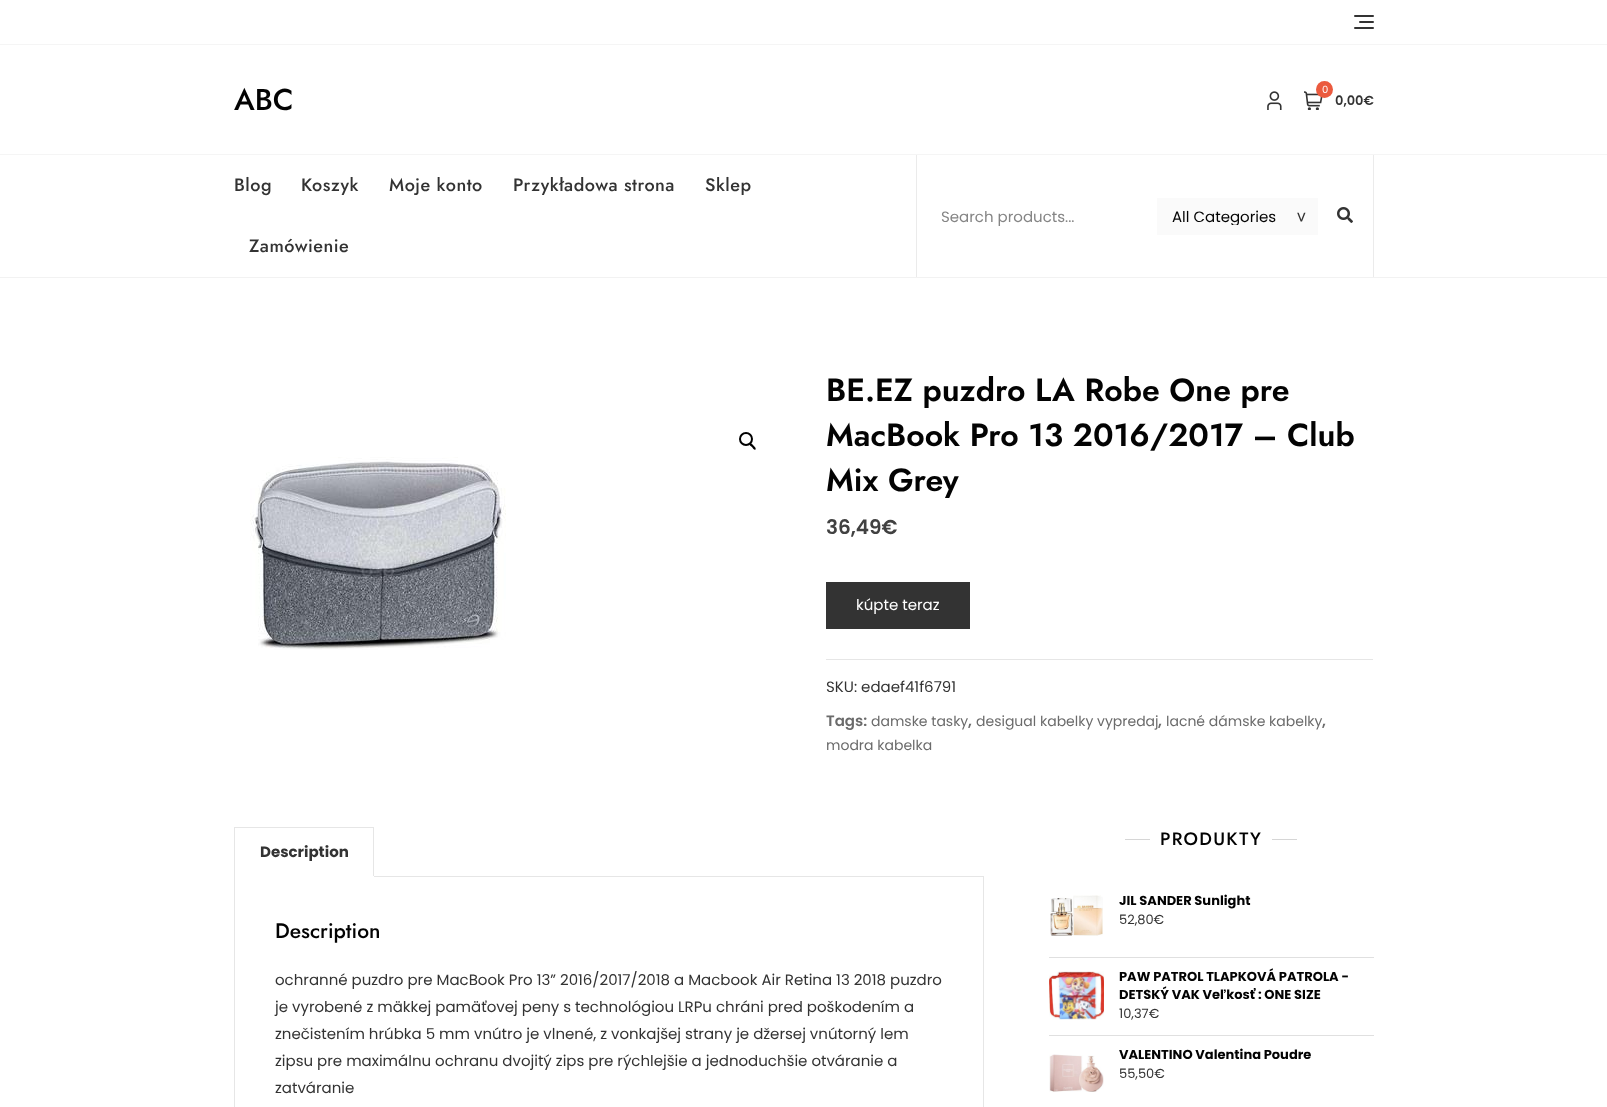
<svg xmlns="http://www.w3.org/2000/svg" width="1607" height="1107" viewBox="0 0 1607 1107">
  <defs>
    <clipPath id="clip1"><rect x="1172" y="208" width="131" height="17"/></clipPath>
  </defs>
  <rect width="100%" height="100%" fill="rgb(255,255,255)"/>
  <rect x="0" y="44" width="1607" height="1" fill="rgb(245,245,245)"/>
  <rect x="1359" y="21" width="15" height="2" rx="1" fill="rgb(51,51,51)"/>
  <rect x="1354" y="15" width="20" height="2" rx="1" fill="rgb(51,51,51)"/>
  <rect x="1354" y="27" width="20" height="2" rx="1" fill="rgb(51,51,51)"/>
  <rect x="0" y="154" width="1607" height="1" fill="rgb(245,245,245)"/>
  <text x="234" y="110" font-family="Jost" font-size="30" font-weight="500" fill="rgb(3,3,3)">ABC</text>
  <image x="1267" y="91" width="15" height="19" href="pic1.png"/>
  <image x="1304" y="91" width="19" height="19" href="pic2.png"/>
  <circle cx="1324.5" cy="89.5" r="8.5" fill="rgb(235,90,62)"/>
  <text x="1322" y="93" font-family="Poppins" font-size="10" fill="rgb(255,255,255)">0</text>
  <text x="1335" y="105" font-family="Poppins" font-size="13" font-weight="600" fill="rgb(51,51,51)">0,00€</text>
  <g font-family="Jost" font-size="18" font-weight="500" letter-spacing="0.5" fill="rgb(51,51,51)">
    <text x="234" y="191">Blog</text>
    <text x="301" y="191">Koszyk</text>
    <text x="389" y="191">Moje konto</text>
    <text x="513" y="191">Przykładowa strona</text>
    <text x="705" y="191">Sklep</text>
    <text x="249" y="252">Zamówienie</text>
  </g>
  <rect x="1373" y="155" width="1" height="122" fill="rgb(235,235,235)"/>
  <rect x="916" y="155" width="1" height="122" fill="rgb(235,235,235)"/>
  <text x="941" y="222" font-family="Poppins" font-size="15" fill="rgb(133,133,133)">Search products...</text>
  <rect x="1157" y="198" width="161" height="37" fill="rgb(250,250,250)"/>
  <g clip-path="url(#clip1)">
    <text x="1172" y="222" font-family="Poppins" font-size="15" fill="rgb(3,3,3)">All Categories</text>
  </g>
  <text x="1296" y="212" transform="rotate(90 1296 212)" font-family="DejaVu Sans Mono" font-size="17" fill="rgb(51,51,51)">&gt;</text>
  <image x="1337" y="207" width="16" height="16" href="pic3.png"/>
  <rect x="0" y="277" width="1607" height="1" fill="rgb(242,242,242)"/>
  <circle cx="746" cy="439" r="6" fill="none" stroke="rgb(0,0,0)" stroke-width="2"/>
  <path d="M750 443.5C751 442.5 753 445 753.5 445.5C754 446.5 756.5 448 755.5 449.5C754.5 450.5 752.5 448 752 447C751.5 446.5 748.5 445 750 443.5Z" fill="rgb(0,0,0)"/>
  <image x="250" y="457" width="256" height="193" href="pic4.png"/>
  <g font-family="Jost" font-size="32" font-weight="600" fill="rgb(3,3,3)">
    <text>
      <tspan x="826" y="401">BE.EZ puzdro LA Robe One pre</tspan>
      <tspan x="826" y="446">MacBook Pro 13 2016/2017 – Club</tspan>
      <tspan x="826" y="491">Mix Grey</tspan>
    </text>
  </g>
  <text x="826" y="534" font-family="Poppins" font-size="20" font-weight="600" fill="rgb(65,65,65)">36,49€</text>
  <rect x="826" y="582" width="144" height="47" fill="rgb(51,51,51)"/>
  <text x="856" y="610" font-family="Poppins" font-size="15" fill="rgb(255,255,255)">kúpte teraz</text>
  <rect x="826" y="659" width="547" height="1" fill="rgb(230,230,230)"/>
  <text x="826" y="692" font-family="Poppins" font-size="15" fill="rgb(51,51,51)">SKU: edaef41f6791</text>
  <text x="826" y="726" font-family="Poppins" font-size="15" font-weight="600" fill="rgb(107,107,107)">Tags:</text>
  <text x="871" y="726" font-family="Poppins" font-size="14" fill="rgb(107,107,107)">damske tasky</text>
  <text x="968" y="726" font-family="Poppins" font-size="15" font-weight="600" fill="rgb(107,107,107)">,</text>
  <text x="976" y="726" font-family="Poppins" font-size="14" fill="rgb(107,107,107)">desigual kabelky vypredaj</text>
  <text x="1158" y="726" font-family="Poppins" font-size="15" font-weight="600" fill="rgb(107,107,107)">,</text>
  <text x="1166" y="726" font-family="Poppins" font-size="14" fill="rgb(107,107,107)">lacné dámske kabelky</text>
  <text x="1322" y="726" font-family="Poppins" font-size="15" font-weight="600" fill="rgb(107,107,107)">,</text>
  <text x="826" y="750" font-family="Poppins" font-size="14" fill="rgb(107,107,107)">modra kabelka</text>
  <rect x="234" y="827" width="140" height="1" fill="rgb(230,230,230)"/>
  <rect x="373" y="827" width="1" height="50" fill="rgb(230,230,230)"/>
  <rect x="373" y="876" width="1" height="1" fill="rgb(255,255,255)"/>
  <rect x="234" y="827" width="1" height="50" fill="rgb(230,230,230)"/>
  <text x="260" y="857" font-family="Poppins" font-size="15" font-weight="bold" fill="rgb(51,51,51)">Description</text>
  <rect x="374" y="876" width="610" height="1" fill="rgb(230,230,230)"/>
  <rect x="983" y="877" width="1" height="230" fill="rgb(230,230,230)"/>
  <rect x="234" y="877" width="1" height="230" fill="rgb(230,230,230)"/>
  <text x="275" y="938" font-family="Jost" font-size="21" font-weight="500" fill="rgb(3,3,3)">Description</text>
  <g font-family="Poppins" font-size="15" fill="rgb(51,51,51)">
    <text>
      <tspan x="275" y="985">ochranné puzdro pre MacBook Pro 13” 2016/2017/2018 a Macbook Air Retina 13 2018 puzdro</tspan>
      <tspan x="275" y="1012">je vyrobené z mäkkej pamäťovej peny s technológiou LRPu chráni pred poškodením a</tspan>
      <tspan x="275" y="1039">znečistením hrúbka 5 mm vnútro je vlnené, z vonkajšej strany je džersej vnútorný lem</tspan>
      <tspan x="275" y="1066">zipsu pre maximálnu ochranu dvojitý zips pre rýchlejšie a jednoduchšie otváranie a</tspan>
      <tspan x="275" y="1093">zatváranie</tspan>
    </text>
  </g>
  <rect x="1125" y="839" width="25" height="1" fill="rgb(214,214,214)"/>
  <text x="1160" y="845" font-family="Jost" font-size="18" font-weight="500" letter-spacing="1.25" fill="rgb(3,3,3)">PRODUKTY</text>
  <rect x="1272" y="839" width="25" height="1" fill="rgb(214,214,214)"/>
  <rect x="1049" y="957" width="325" height="1" fill="rgb(224,224,224)"/>
  <image x="1050" y="895" width="53" height="41" href="pic5.png"/>
  <text x="1119" y="905" font-family="Poppins" font-size="13" font-weight="bold" fill="rgb(3,3,3)">JIL SANDER Sunlight</text>
  <text x="1119" y="924" font-family="Poppins" font-size="13" fill="rgb(51,51,51)">52,80€</text>
  <rect x="1049" y="1035" width="325" height="1" fill="rgb(224,224,224)"/>
  <image x="1049" y="971" width="55" height="49" href="pic6.png"/>
  <g font-family="Poppins" font-size="13" font-weight="bold" fill="rgb(3,3,3)">
    <text>
      <tspan x="1119" y="981">PAW PATROL TLAPKOVÁ PATROLA -</tspan>
      <tspan x="1119" y="999">DETSKÝ VAK Veľkosť : ONE SIZE</tspan>
    </text>
  </g>
  <text x="1119" y="1018" font-family="Poppins" font-size="13" fill="rgb(51,51,51)">10,37€</text>
  <image x="1049" y="1054" width="55" height="38" href="pic7.png"/>
  <text x="1119" y="1059" font-family="Poppins" font-size="13" font-weight="bold" fill="rgb(3,3,3)">VALENTINO Valentina Poudre</text>
  <text x="1119" y="1078" font-family="Poppins" font-size="13" fill="rgb(51,51,51)">55,50€</text>
</svg>
